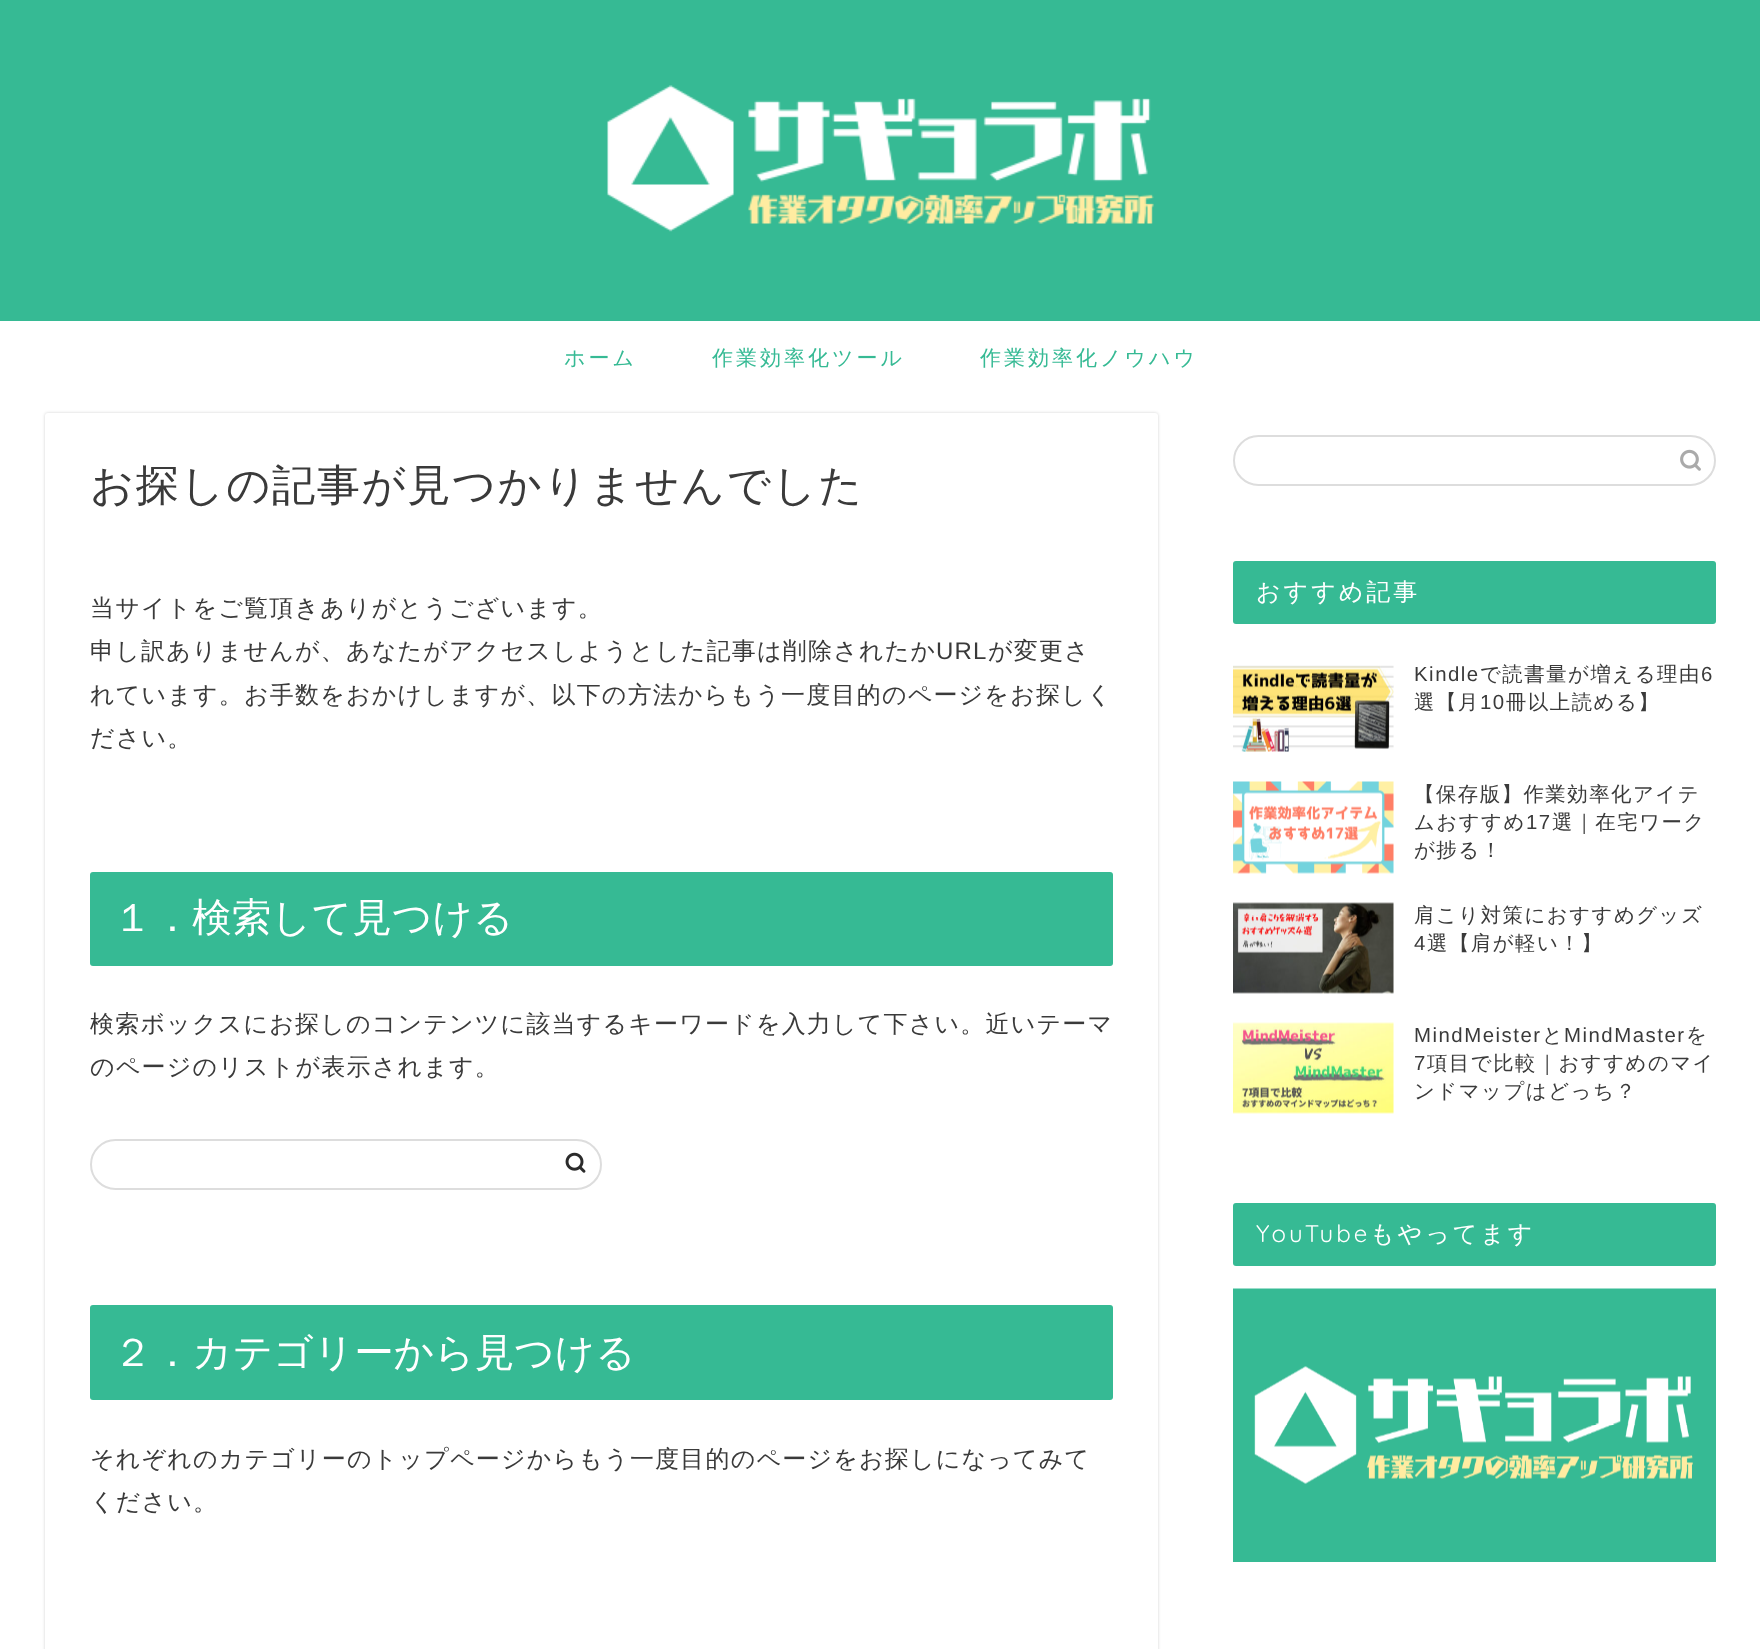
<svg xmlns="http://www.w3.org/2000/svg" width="1760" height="1649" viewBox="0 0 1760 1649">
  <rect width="100%" height="100%" fill="rgb(255,255,255)"/>
  <rect x="0" y="0" width="1760" height="321" fill="rgb(54,186,148)"/>
  <image x="607" y="85" width="547" height="147" href="pic1.png"/>
  <g font-family="WenQuanYi Zen Hei" font-size="21" font-weight="500" letter-spacing="3" fill="rgb(54,186,148)">
    <text x="564" y="365">ホーム</text>
    <text x="712" y="365">作業効率化ツール</text>
    <text x="980" y="365">作業効率化ノウハウ</text>
  </g>
  <rect x="45" y="413" width="1113" height="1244" rx="3" fill="rgba(0,0,0,0.18)" filter="blur(1.5px)"/>
  <rect x="45" y="413" width="1113" height="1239" rx="3" fill="rgb(255,255,255)"/>
  <text x="90" y="500" font-family="WenQuanYi Zen Hei" font-size="43.25" font-weight="500" letter-spacing="1.5" fill="rgb(58,58,58)">お探しの記事が見つかりませんでした</text>
  <g font-family="WenQuanYi Zen Hei" font-size="24" font-weight="500" letter-spacing="1.2" fill="rgb(58,58,58)">
    <text>
      <tspan x="90" y="616">当サイトをご覧頂きありがとうございます。</tspan>
      <tspan x="90" y="659">申し訳ありませんが、あなたがアクセスしようとした記事は削除されたか</tspan>
    </text>
  </g>
  <text x="936" y="659" font-family="Liberation Sans" font-size="24" letter-spacing="1.2" fill="rgb(58,58,58)">URL</text>
  <g font-family="WenQuanYi Zen Hei" font-size="24" font-weight="500" letter-spacing="1.2" fill="rgb(58,58,58)">
    <text x="988" y="659">が変更さ</text>
    <text>
      <tspan x="90" y="703">れています。お手数をおかけしますが、以下の方法からもう一度目的のページをお探しく</tspan>
      <tspan x="90" y="746">ださい。</tspan>
    </text>
  </g>
  <rect x="90" y="872" width="1023" height="94" rx="3" fill="rgb(54,186,148)"/>
  <text x="113" y="931" font-family="WenQuanYi Zen Hei" font-size="39.6" font-weight="500" fill="rgb(255,255,255)">１．検索して見つける</text>
  <g font-family="WenQuanYi Zen Hei" font-size="24" font-weight="500" letter-spacing="1.2" fill="rgb(58,58,58)">
    <text>
      <tspan x="90" y="1032">検索ボックスにお探しのコンテンツに該当するキーワードを入力して下さい。近いテーマ</tspan>
      <tspan x="90" y="1075">のページのリストが表示されます。</tspan>
    </text>
  </g>
  <rect x="91" y="1140" width="510" height="49" rx="24.5" fill="none" stroke="rgb(221,221,221)" stroke-width="2"/>
  <image x="565" y="1152" width="21" height="21" href="pic2.png"/>
  <rect x="90" y="1305" width="1023" height="95" rx="3" fill="rgb(54,186,148)"/>
  <text x="113" y="1366" font-family="WenQuanYi Zen Hei" font-size="39.6" font-weight="500" fill="rgb(255,255,255)">２．カテゴリーから見つける</text>
  <g font-family="WenQuanYi Zen Hei" font-size="24" font-weight="500" letter-spacing="1.2" fill="rgb(58,58,58)">
    <text>
      <tspan x="90" y="1467">それぞれのカテゴリーのトップページからもう一度目的のページをお探しになってみて</tspan>
      <tspan x="90" y="1510">ください。</tspan>
    </text>
  </g>
  <rect x="1234" y="436" width="481" height="49" rx="24.5" fill="none" stroke="rgb(221,221,221)" stroke-width="2"/>
  <image x="1680" y="449" width="21" height="22" href="pic3.png"/>
  <rect x="1233" y="561" width="483" height="63" rx="3" fill="rgb(54,186,148)"/>
  <text x="1256" y="600" font-family="WenQuanYi Zen Hei" font-size="24" font-weight="500" letter-spacing="3" fill="rgb(255,255,255)">おすすめ記事</text>
  <image x="1233" y="665" width="161" height="87" href="pic4.png"/>
  <text x="1414" y="681" font-family="Liberation Sans" font-size="20.4" letter-spacing="1.5" fill="rgb(58,58,58)">Kindle</text>
  <text x="1480" y="681" font-family="WenQuanYi Zen Hei" font-size="20.4" font-weight="500" letter-spacing="1.5" fill="rgb(58,58,58)">で読書量が増える理由</text>
  <text x="1701" y="681" font-family="Liberation Sans" font-size="20.4" letter-spacing="1.5" fill="rgb(58,58,58)">6</text>
  <text x="1414" y="709" font-family="WenQuanYi Zen Hei" font-size="20.4" font-weight="500" letter-spacing="1.5" fill="rgb(58,58,58)">選【月</text>
  <text x="1480" y="709" font-family="Liberation Sans" font-size="20.4" letter-spacing="1.5" fill="rgb(58,58,58)">10</text>
  <text x="1506" y="709" font-family="WenQuanYi Zen Hei" font-size="20.4" font-weight="500" letter-spacing="1.5" fill="rgb(58,58,58)">冊以上読める】</text>
  <image x="1233" y="781" width="161" height="93" href="pic5.png"/>
  <g font-family="WenQuanYi Zen Hei" font-size="20.4" font-weight="500" letter-spacing="1.5" fill="rgb(58,58,58)">
    <text>
      <tspan x="1414" y="801">【保存版】作業効率化アイテ</tspan>
      <tspan x="1414" y="829">ムおすすめ</tspan>
    </text>
  </g>
  <text x="1526" y="829" font-family="Liberation Sans" font-size="20.4" letter-spacing="1.5" fill="rgb(58,58,58)">17</text>
  <g font-family="WenQuanYi Zen Hei" font-size="20.4" font-weight="500" letter-spacing="1.5" fill="rgb(58,58,58)">
    <text x="1552" y="829">選｜在宅ワーク</text>
    <text x="1414" y="857">が捗る！</text>
  </g>
  <image x="1233" y="902" width="161" height="92" href="pic6.png"/>
  <text x="1414" y="922" font-family="WenQuanYi Zen Hei" font-size="20.4" font-weight="500" letter-spacing="1.5" fill="rgb(58,58,58)">肩こり対策におすすめグッズ</text>
  <text x="1414" y="950" font-family="Liberation Sans" font-size="20.4" letter-spacing="1.5" fill="rgb(58,58,58)">4</text>
  <text x="1427" y="950" font-family="WenQuanYi Zen Hei" font-size="20.4" font-weight="500" letter-spacing="1.5" fill="rgb(58,58,58)">選【肩が軽い！】</text>
  <image x="1233" y="1022" width="161" height="92" href="pic7.png"/>
  <text x="1414" y="1042" font-family="Liberation Sans" font-size="20.4" letter-spacing="1.5" fill="rgb(58,58,58)">MindMeister</text>
  <text x="1542" y="1042" font-family="WenQuanYi Zen Hei" font-size="20.4" font-weight="500" letter-spacing="1.5" fill="rgb(58,58,58)">と</text>
  <text x="1564" y="1042" font-family="Liberation Sans" font-size="20.4" letter-spacing="1.5" fill="rgb(58,58,58)">MindMaster</text>
  <text x="1686" y="1042" font-family="WenQuanYi Zen Hei" font-size="20.4" font-weight="500" letter-spacing="1.5" fill="rgb(58,58,58)">を</text>
  <text x="1414" y="1070" font-family="Liberation Sans" font-size="20.4" letter-spacing="1.5" fill="rgb(58,58,58)">7</text>
  <g font-family="WenQuanYi Zen Hei" font-size="20.4" font-weight="500" letter-spacing="1.5" fill="rgb(58,58,58)">
    <text x="1427" y="1070">項目で比較｜おすすめのマイ</text>
    <text x="1414" y="1098">ンドマップはどっち？</text>
  </g>
  <rect x="1233" y="1203" width="483" height="63" rx="3" fill="rgb(54,186,148)"/>
  <text x="1256" y="1242" font-family="Quicksand" font-size="24" font-weight="300" letter-spacing="3" fill="rgb(255,255,255)">YouTube</text>
  <text x="1370" y="1242" font-family="WenQuanYi Zen Hei" font-size="24" font-weight="500" letter-spacing="3" fill="rgb(255,255,255)">もやってます</text>
  <image x="1233" y="1288" width="483" height="274" href="pic8.png"/>
</svg>
